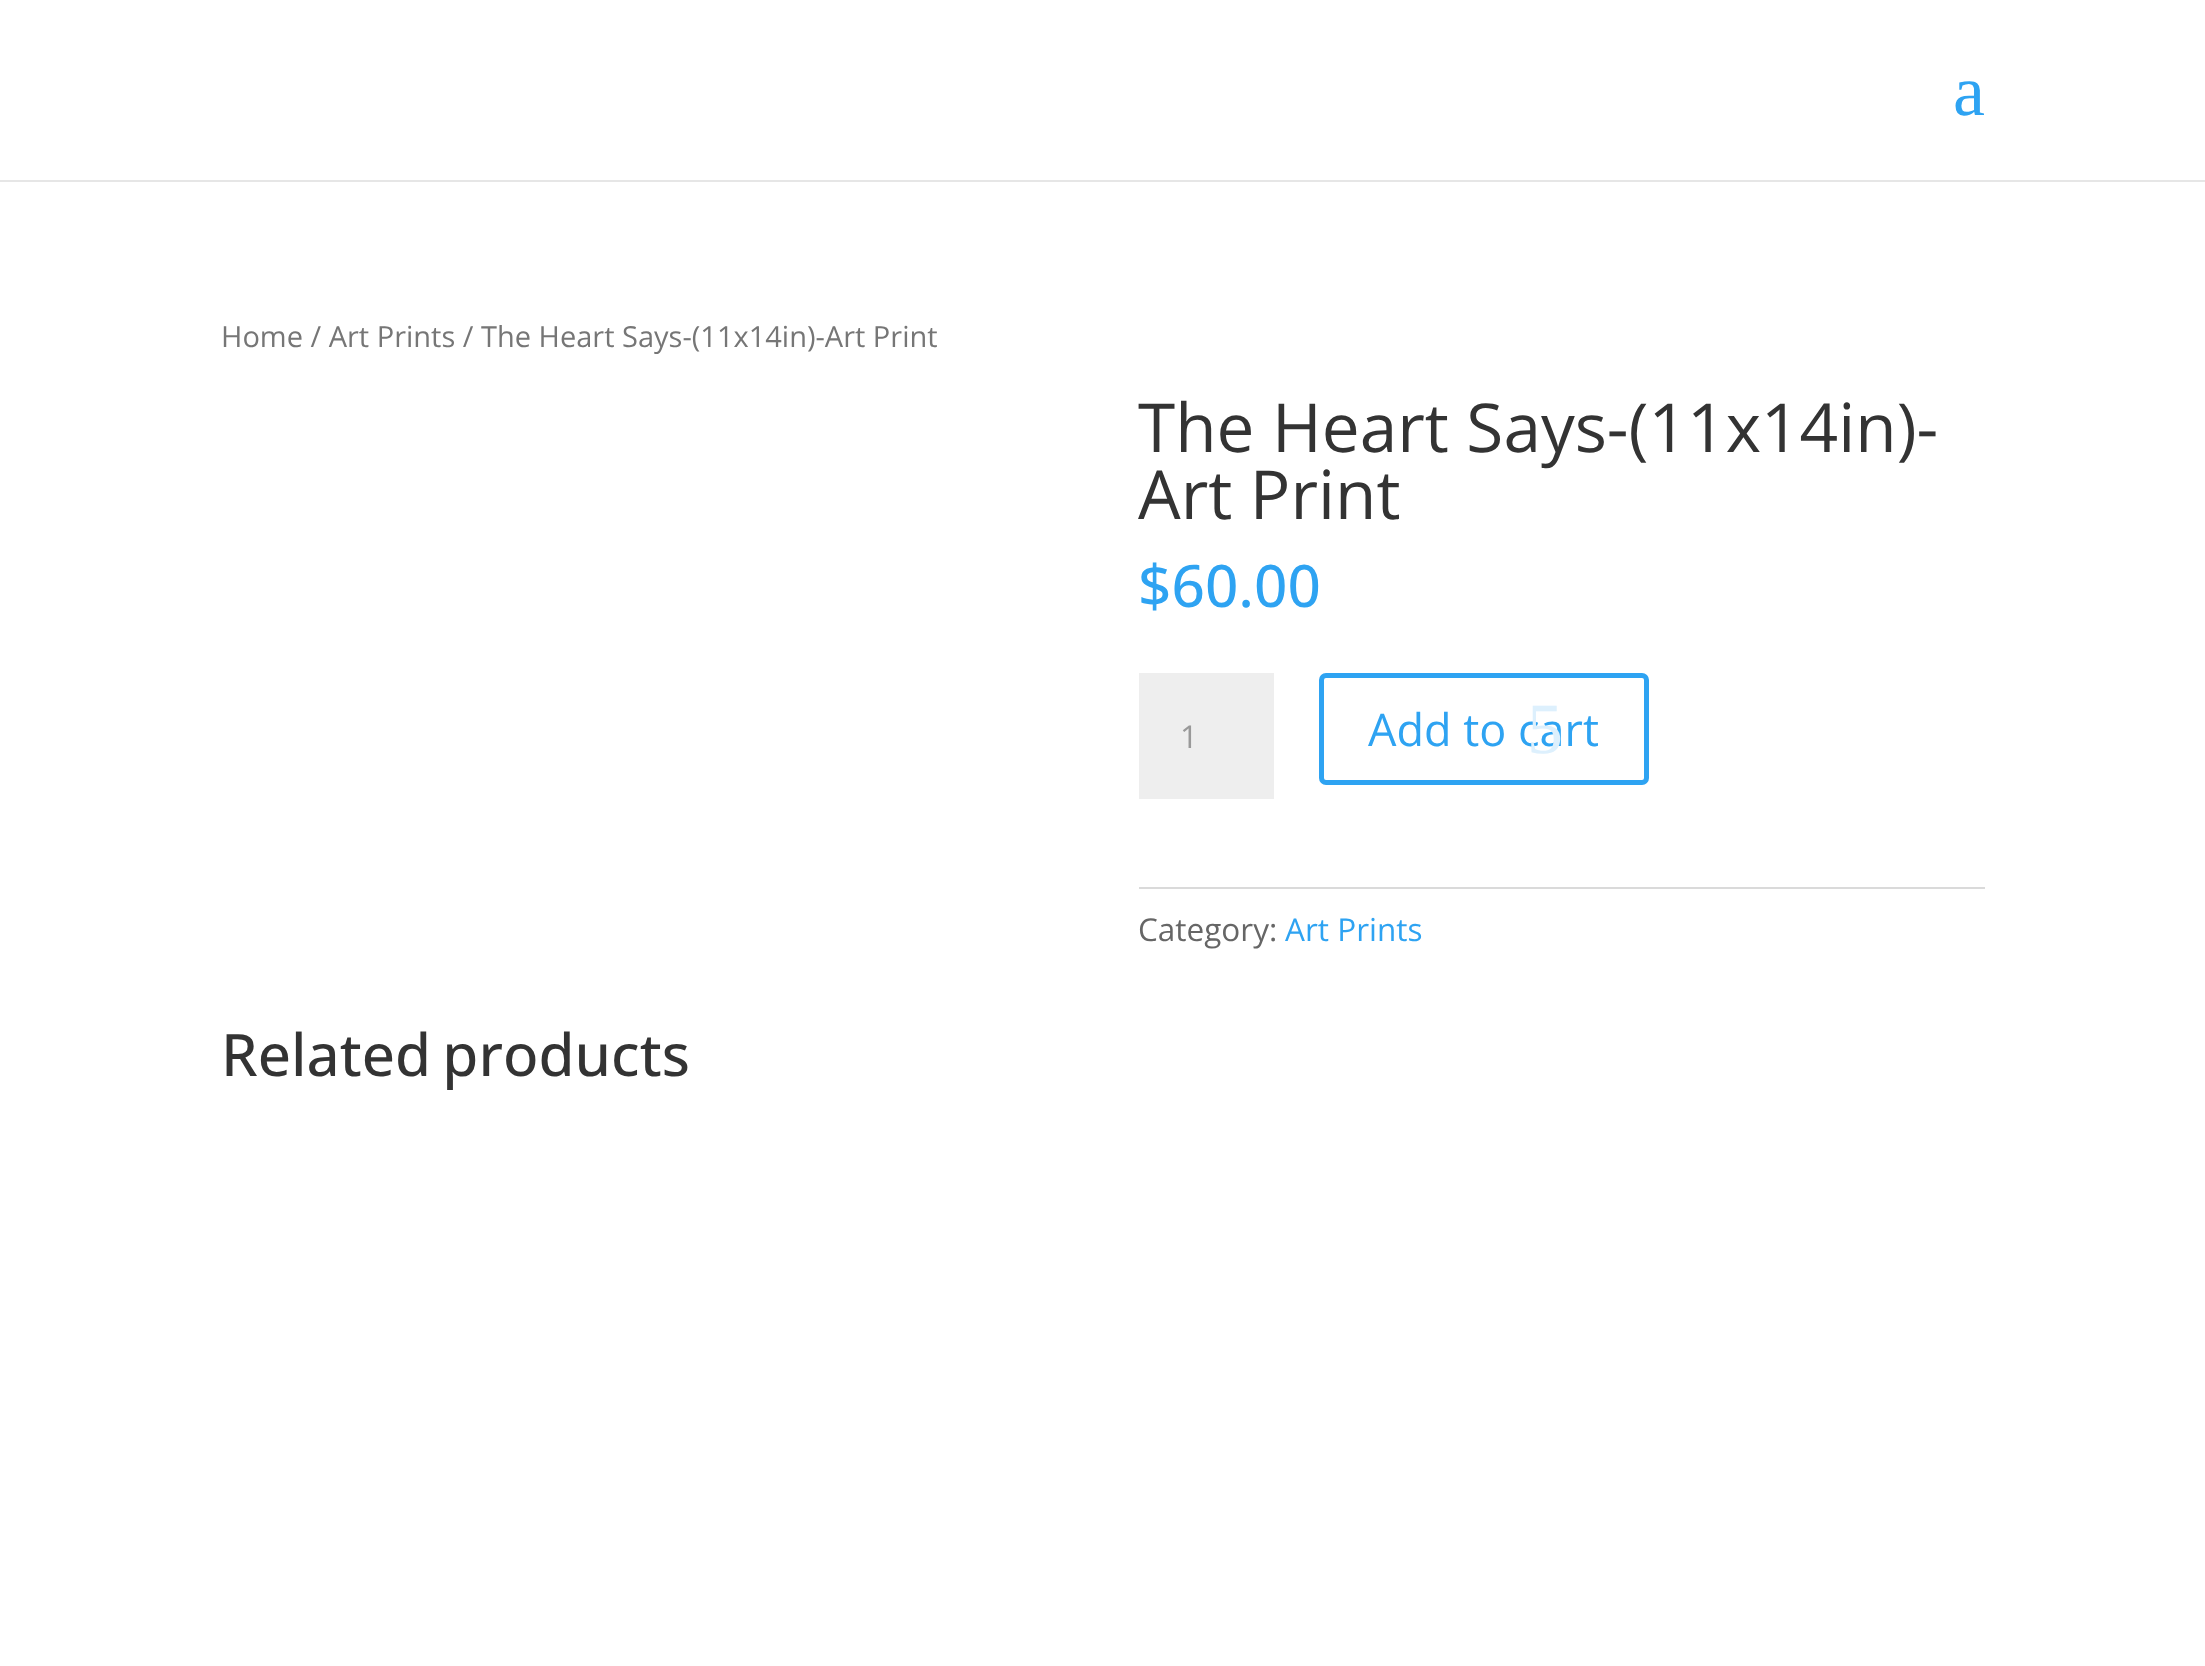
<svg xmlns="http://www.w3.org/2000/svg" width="2205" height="1666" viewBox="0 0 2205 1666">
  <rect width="100%" height="100%" fill="rgb(255,255,255)"/>
  <rect x="0" y="180" width="2205" height="2" fill="rgb(230,230,230)"/>
  <text x="1953" y="115" font-family="Liberation Serif" font-size="72" fill="rgb(46,163,242)">a</text>
  <text x="221" y="347" font-family="Open Sans" font-size="29" fill="rgb(118,118,118)">Home / Art Prints / The Heart Says-(11x14in)-Art Print</text>
  <g font-family="Open Sans" font-size="67.5" fill="rgb(51,51,51)">
    <text>
      <tspan x="1138" y="452">The Heart Says-(11x14in)-</tspan>
      <tspan x="1138" y="519">Art Print</tspan>
    </text>
  </g>
  <text x="1138" y="607" font-family="Open Sans" font-size="58.5" font-weight="500" fill="rgb(46,163,242)">$60.00</text>
  <rect x="1139" y="673" width="135" height="126" fill="rgb(238,238,238)"/>
  <text x="1180" y="748" font-family="Open Sans" font-size="31.5" fill="rgb(153,153,153)">1</text>
  <rect x="1321.5" y="675.5" width="325" height="107" rx="4.5" fill="none" stroke="rgb(46,163,242)" stroke-width="5"/>
  <text x="1368" y="746" font-family="Open Sans" font-size="45" fill="rgb(46,163,242)">Add to cart</text>
  <text x="1527" y="753" font-family="Liberation Serif" font-size="72" fill="rgb(221,240,253)">5</text>
  <rect x="1139" y="887" width="846" height="2" fill="rgb(218,218,218)"/>
  <text x="1138" y="941" font-family="Open Sans" font-size="31.5" fill="rgb(102,102,102)">Category:</text>
  <text x="1285" y="941" font-family="Open Sans" font-size="31.5" fill="rgb(46,163,242)">Art Prints</text>
  <text x="221" y="1076" word-spacing="-4" font-family="Open Sans" font-size="58.5" font-weight="500" fill="rgb(51,51,51)">Related products</text>
</svg>
